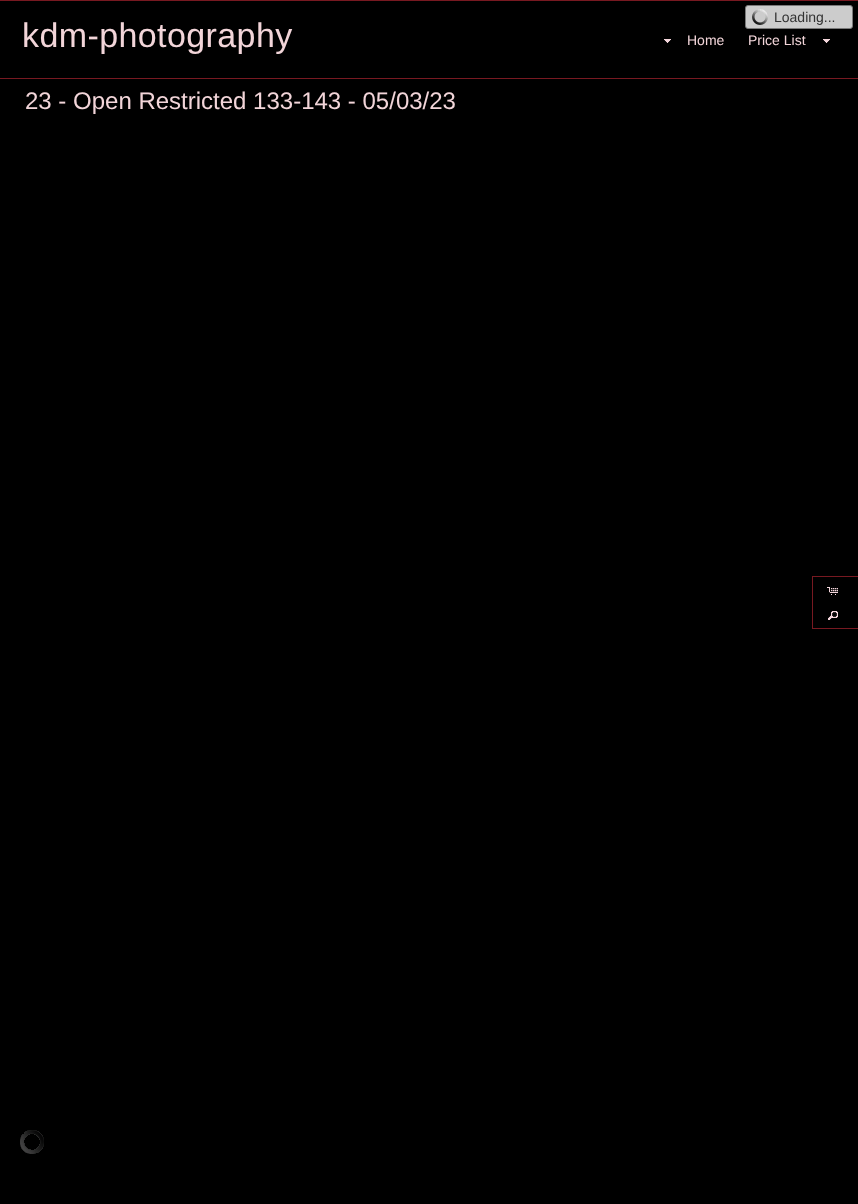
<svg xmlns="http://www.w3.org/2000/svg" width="858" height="1204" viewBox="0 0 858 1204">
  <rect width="100%" height="100%" fill="rgb(0,0,0)"/>
  <rect x="745.5" y="5.5" width="107" height="23" rx="2.5" fill="rgb(204,204,204)" stroke="rgb(122,122,122)"/>
  <image x="752" y="9" width="16" height="16" href="pic1.png"/>
  <text x="774" y="22" font-family="Liberation Sans" font-size="14" fill="rgb(51,51,51)">Loading...</text>
  <rect x="0" y="0" width="858" height="1" fill="rgb(120,25,33)"/>
  <rect x="0" y="78" width="858" height="1" fill="rgb(120,25,33)"/>
  <text x="22" y="47" font-family="Liberation Sans" font-size="34" letter-spacing="0.4" fill="rgb(242,213,217)">kdm-photography</text>
  <image x="664" y="39" width="7" height="4" href="pic2.png"/>
  <g font-family="Liberation Sans" font-size="14" fill="rgb(242,213,217)">
    <text x="687" y="45">Home</text>
    <text x="748" y="45">Price List</text>
  </g>
  <image x="823" y="39" width="7" height="4" href="pic2.png"/>
  <text x="25" y="109" font-family="Liberation Sans" font-size="24" fill="rgb(242,213,217)">23 - Open Restricted 133-143 - 05/03/23</text>
  <rect x="812" y="576" width="46" height="1" fill="rgb(120,25,33)"/>
  <rect x="812" y="628" width="46" height="1" fill="rgb(120,25,33)"/>
  <rect x="812" y="576" width="1" height="53" fill="rgb(120,25,33)"/>
  <image x="827" y="587" width="11" height="8" href="pic3.png"/>
  <image x="828" y="611" width="10" height="9" href="pic4.png"/>
  <image x="20" y="1130" width="24" height="24" href="pic5.png"/>
</svg>
